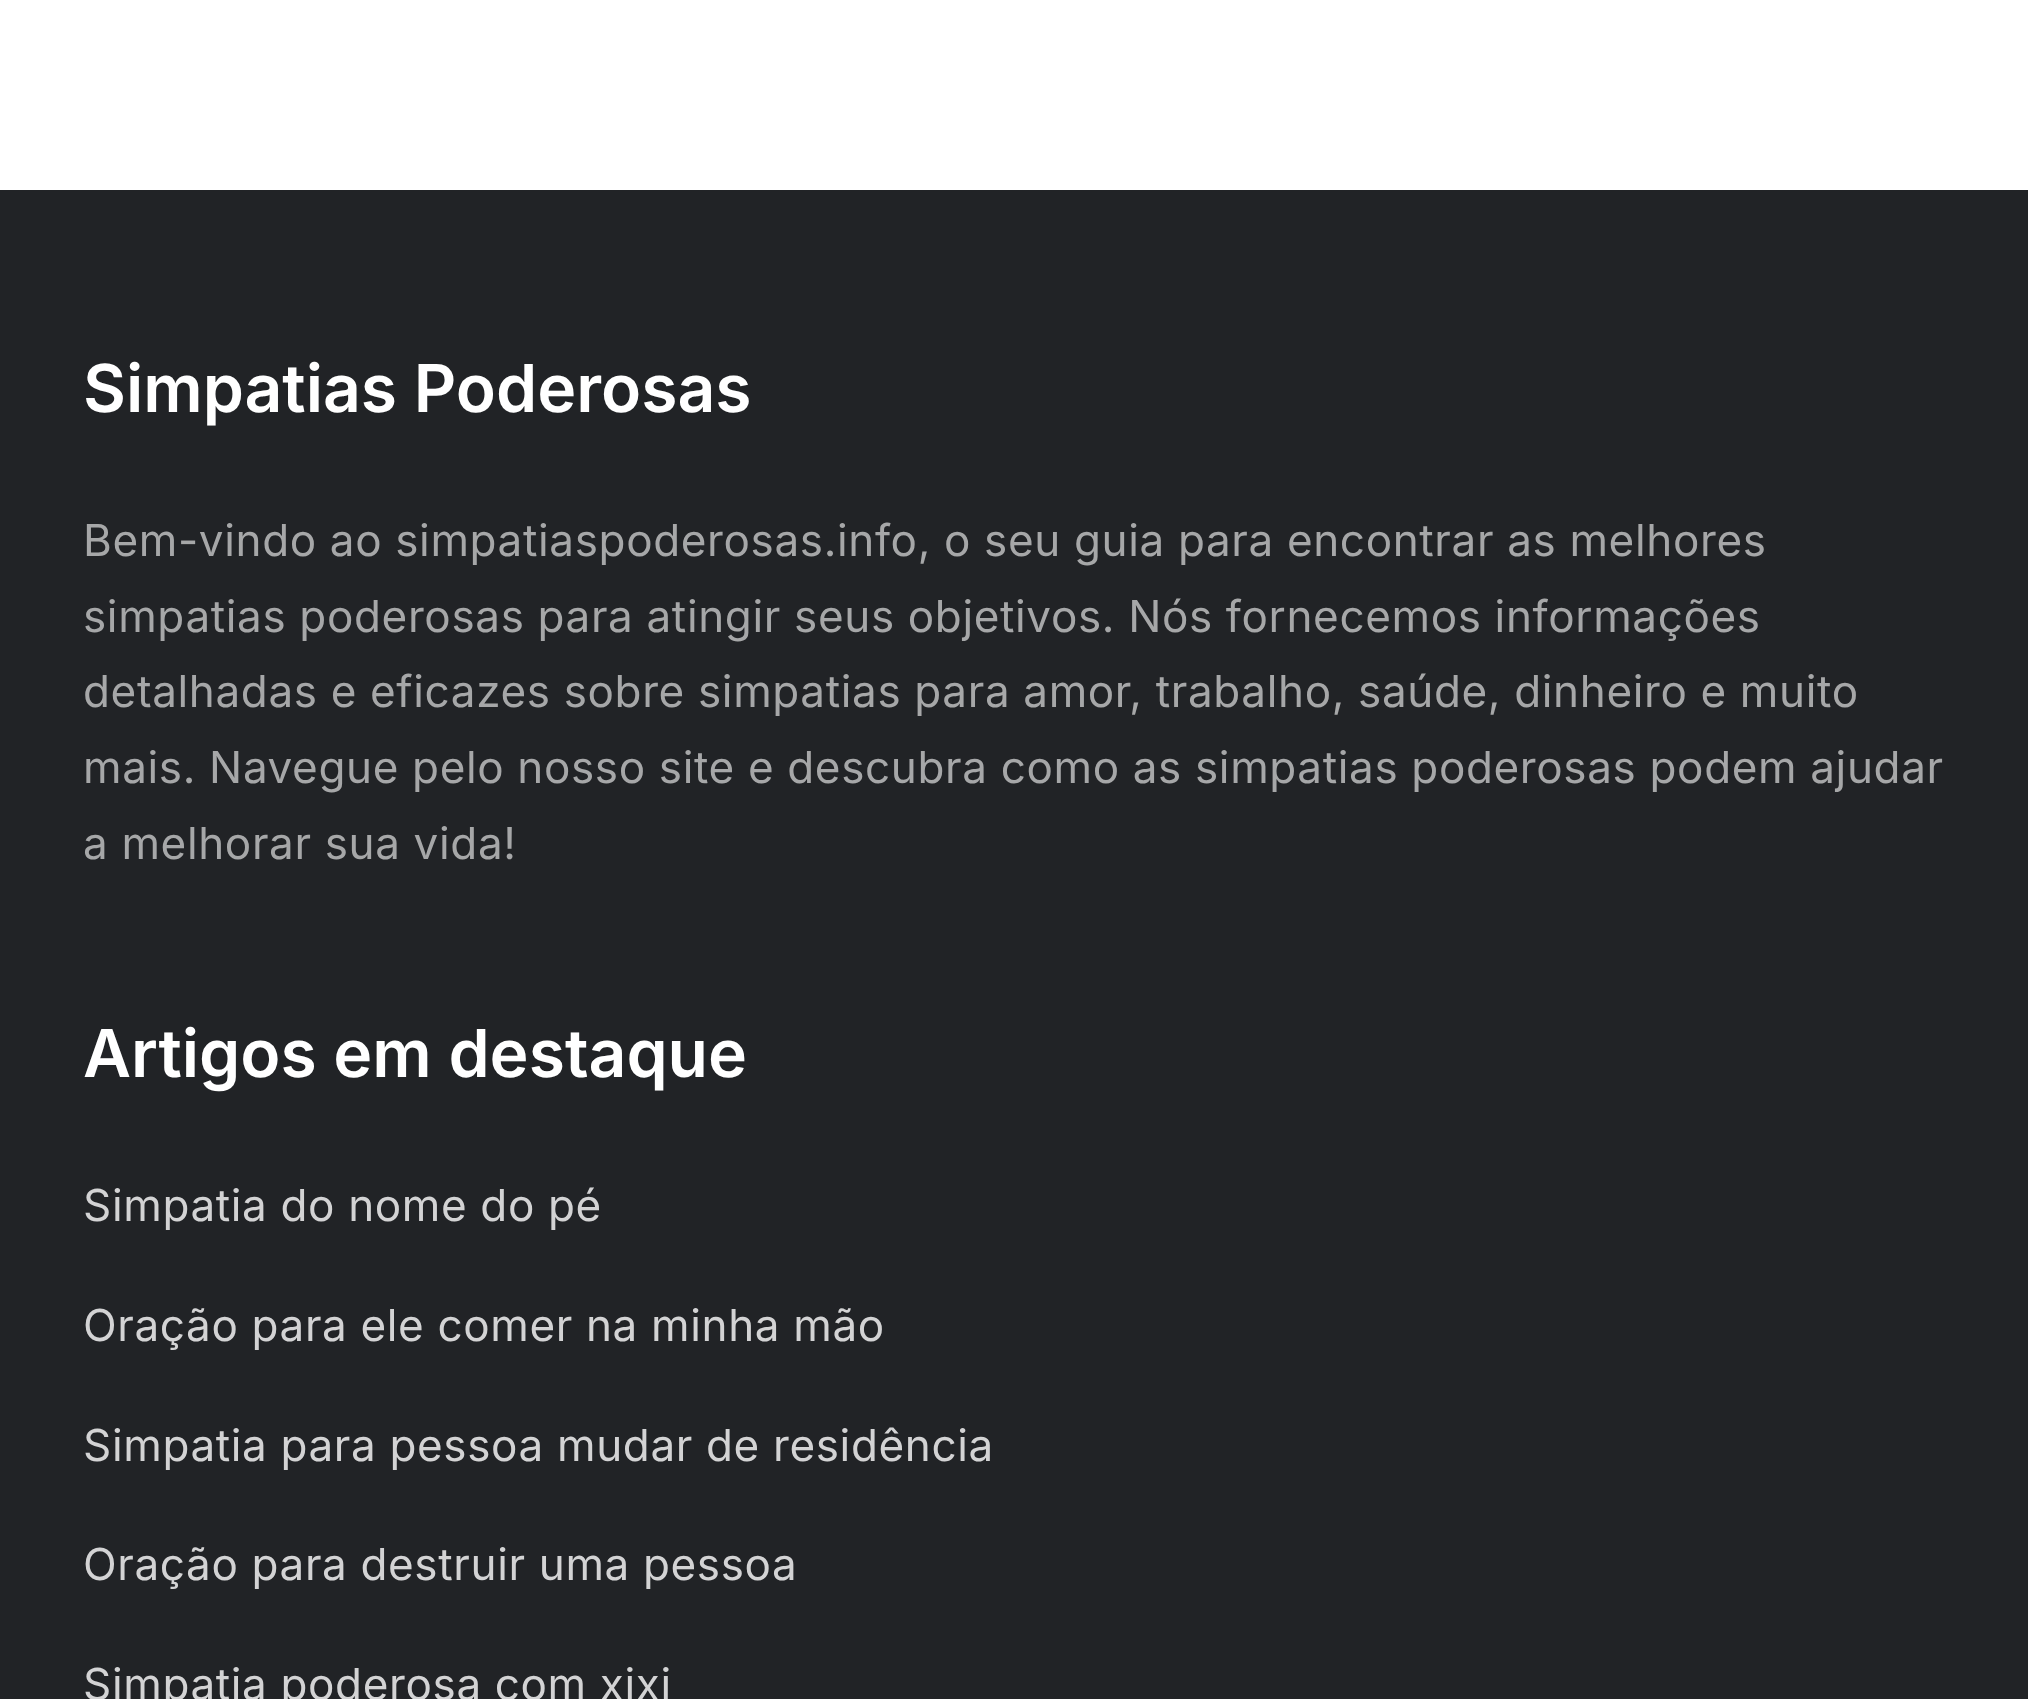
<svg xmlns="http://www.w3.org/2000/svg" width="2028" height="1699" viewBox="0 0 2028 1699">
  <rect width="100%" height="100%" fill="rgb(255,255,255)"/>
  <rect x="0" y="190" width="2028" height="1509" fill="rgb(33,35,38)"/>
  <text x="83" y="412" font-family="Inter" font-size="66" font-weight="600" fill="rgb(255,255,255)">Simpatias Poderosas</text>
  <g font-family="Inter" font-size="44" letter-spacing="0.65" fill="rgb(166,167,168)">
    <text>
      <tspan x="83" y="556">Bem-vindo ao simpatiaspoderosas.info, o seu guia para encontrar as melhores</tspan>
      <tspan x="83" y="632">simpatias poderosas para atingir seus objetivos. Nós fornecemos informações</tspan>
      <tspan x="83" y="707">detalhadas e eficazes sobre simpatias para amor, trabalho, saúde, dinheiro e muito</tspan>
      <tspan x="83" y="783">mais. Navegue pelo nosso site e descubra como as simpatias poderosas podem ajudar</tspan>
      <tspan x="83" y="859">a melhorar sua vida!</tspan>
    </text>
  </g>
  <text x="83" y="1077" font-family="Inter" font-size="66" font-weight="600" fill="rgb(255,255,255)">Artigos em destaque</text>
  <g font-family="Inter" font-size="44" letter-spacing="0.65" fill="rgb(211,211,212)">
    <text x="83" y="1221">Simpatia do nome do pé</text>
    <text x="83" y="1341">Oração para ele comer na minha mão</text>
    <text x="83" y="1461">Simpatia para pessoa mudar de residência</text>
    <text x="83" y="1580">Oração para destruir uma pessoa</text>
    <text x="83" y="1700">Simpatia poderosa com xixi</text>
  </g>
</svg>
